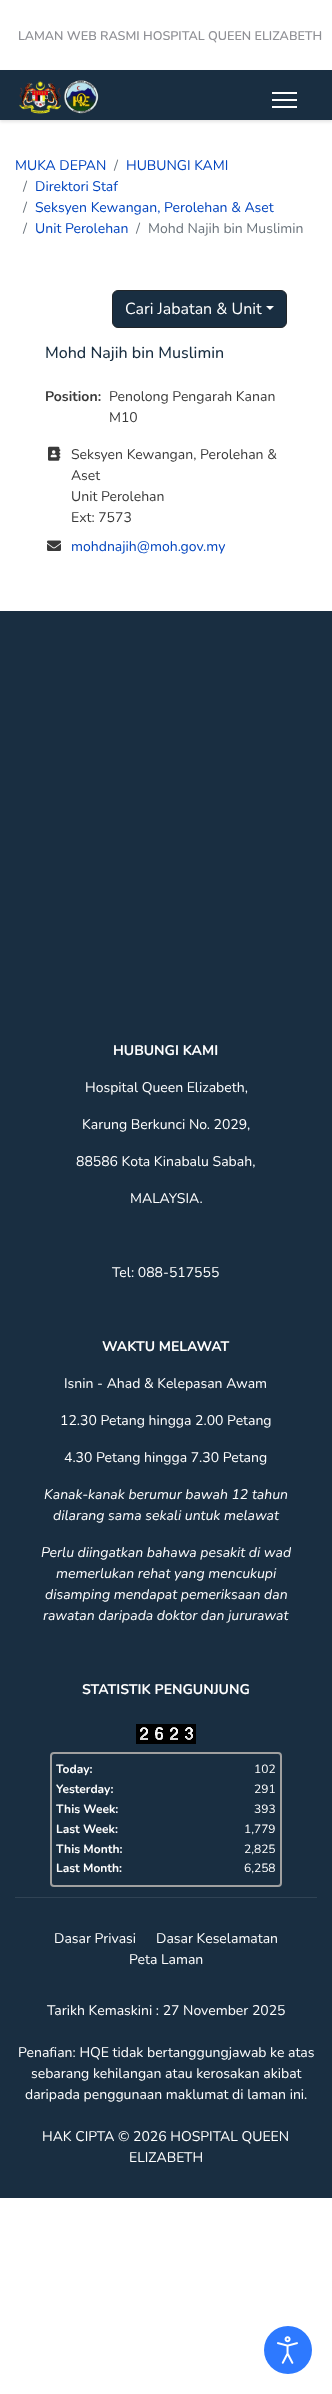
<svg xmlns="http://www.w3.org/2000/svg" width="332" height="2394" viewBox="0 0 332 2394">
  <rect width="100%" height="100%" fill="rgb(255,255,255)"/>
  <text x="18" y="40" font-family="Nunito" font-size="12.6" font-weight="600" fill="rgb(144,145,150)">LAMAN WEB RASMI HOSPITAL QUEEN ELIZABETH</text>
  <rect x="0" y="72" width="332" height="50" fill="rgba(0,0,0,0.1)" filter="blur(1.5px)"/>
  <rect x="0" y="70" width="332" height="50" fill="rgb(25,46,65)"/>
  <image x="19" y="80" width="80" height="34" href="pic1.png"/>
  <rect x="272" y="92" width="25" height="2" fill="rgb(255,255,255)"/>
  <rect x="272" y="99" width="25" height="2" fill="rgb(255,255,255)"/>
  <rect x="272" y="106" width="25" height="2" fill="rgb(255,255,255)"/>
  <text x="15" y="170" font-family="Nunito" font-size="14" fill="rgb(3,69,191)">MUKA DEPAN</text>
  <text x="114" y="170" font-family="Nunito" font-size="14" fill="rgb(108,117,125)">/</text>
  <text x="126" y="170" font-family="Nunito" font-size="14" fill="rgb(3,69,191)">HUBUNGI KAMI</text>
  <text x="23" y="191" font-family="Nunito" font-size="14" fill="rgb(108,117,125)">/</text>
  <text x="35" y="191" font-family="Nunito" font-size="14" fill="rgb(3,69,191)">Direktori Staf</text>
  <text x="23" y="212" font-family="Nunito" font-size="14" fill="rgb(108,117,125)">/</text>
  <text x="35" y="212" font-family="Nunito" font-size="14" fill="rgb(3,69,191)">Seksyen Kewangan, Perolehan &amp; Aset</text>
  <text x="23" y="233" font-family="Nunito" font-size="14" fill="rgb(108,117,125)">/</text>
  <text x="35" y="233" font-family="Nunito" font-size="14" fill="rgb(3,69,191)">Unit Perolehan</text>
  <g font-family="Nunito" font-size="14" fill="rgb(108,117,125)">
    <text x="136" y="233">/</text>
    <text x="148" y="233">Mohd Najih bin Muslimin</text>
  </g>
  <rect x="112.5" y="290.5" width="174" height="37" rx="5.5" fill="rgb(25,46,65)" stroke="rgb(33,37,41)"/>
  <text x="125" y="314" font-family="Nunito" font-size="16" fill="rgb(255,255,255)">Cari Jabatan &amp; Unit</text>
  <path d="M266 306H274L270 310Z" fill="rgb(255,255,255)"/>
  <text x="45" y="358" font-family="Nunito" font-size="16" font-weight="500" fill="rgb(25,46,65)">Mohd Najih bin Muslimin</text>
  <text x="45" y="401" font-family="Nunito" font-size="14" font-weight="bold" fill="rgb(58,58,58)">Position:</text>
  <g font-family="Nunito" font-size="14" fill="rgb(58,58,58)">
    <text>
      <tspan x="109" y="401">Penolong Pengarah Kanan</tspan>
      <tspan x="109" y="422">M10</tspan>
    </text>
  </g>
  <image x="48" y="446" width="13" height="15" href="pic2.png"/>
  <g font-family="Nunito" font-size="14" fill="rgb(58,58,58)">
    <text>
      <tspan x="71" y="459">Seksyen Kewangan, Perolehan &amp;</tspan>
      <tspan x="71" y="480">Aset</tspan>
      <tspan x="71" y="501">Unit Perolehan</tspan>
      <tspan x="71" y="522">Ext: 7573</tspan>
    </text>
  </g>
  <image x="47" y="540" width="14" height="11" href="pic3.png"/>
  <text x="71" y="551" font-family="Nunito" font-size="14" fill="rgb(3,69,191)">mohdnajih@moh.gov.my</text>
  <rect x="0" y="611" width="332" height="1587" fill="rgb(25,46,65)"/>
  <text x="113" y="1055" font-family="Nunito" font-size="14" font-weight="bold" fill="rgb(255,255,255)">HUBUNGI KAMI</text>
  <g font-family="Nunito" font-size="14" fill="rgb(255,255,255)">
    <text x="85" y="1092">Hospital Queen Elizabeth,</text>
    <text x="82" y="1129">Karung Berkunci No. 2029,</text>
    <text x="76" y="1166">88586 Kota Kinabalu Sabah,</text>
    <text x="130" y="1203">MALAYSIA.</text>
    <text x="112" y="1277">Tel: 088-517555</text>
  </g>
  <text x="102" y="1351" font-family="Nunito" font-size="14" font-weight="bold" fill="rgb(255,255,255)">WAKTU MELAWAT</text>
  <g font-family="Nunito" font-size="14" fill="rgb(255,255,255)">
    <text x="64" y="1388">Isnin - Ahad &amp; Kelepasan Awam</text>
    <text x="60" y="1425">12.30 Petang hingga 2.00 Petang</text>
    <text x="64" y="1462">4.30 Petang hingga 7.30 Petang</text>
  </g>
  <g font-family="Nunito" font-size="14" font-style="italic" fill="rgb(255,255,255)">
    <text x="44" y="1499">Kanak-kanak berumur bawah 12 tahun</text>
    <text x="53" y="1520">dilarang sama sekali untuk melawat</text>
    <text x="41" y="1557">Perlu diingatkan bahawa pesakit di wad</text>
    <text x="56" y="1578">memerlukan rehat yang mencukupi</text>
    <text x="45" y="1599">disamping mendapat pemeriksaan dan</text>
    <text x="43" y="1620">rawatan daripada doktor dan jururawat</text>
  </g>
  <text x="82" y="1694" font-family="Nunito" font-size="14" font-weight="bold" fill="rgb(255,255,255)">STATISTIK PENGUNJUNG</text>
  <image x="136" y="1724" width="15" height="20" href="pic4.png"/>
  <image x="151" y="1724" width="15" height="20" href="pic5.png"/>
  <image x="166" y="1724" width="15" height="20" href="pic4.png"/>
  <image x="181" y="1724" width="15" height="20" href="pic6.png"/>
  <rect x="51" y="1753" width="230" height="133" rx="3" fill="none" stroke="rgb(160,160,160)" stroke-width="2"/>
  <text x="56" y="1773" font-family="Nunito" font-size="12" font-weight="bold" fill="rgb(255,255,255)">Today:</text>
  <text x="254" y="1773" font-family="Nunito" font-size="12" fill="rgb(255,255,255)">102</text>
  <text x="56" y="1793" font-family="Nunito" font-size="12" font-weight="bold" fill="rgb(255,255,255)">Yesterday:</text>
  <text x="254" y="1793" font-family="Nunito" font-size="12" fill="rgb(255,255,255)">291</text>
  <text x="56" y="1813" font-family="Nunito" font-size="12" font-weight="bold" fill="rgb(255,255,255)">This Week:</text>
  <text x="254" y="1813" font-family="Nunito" font-size="12" fill="rgb(255,255,255)">393</text>
  <text x="56" y="1833" font-family="Nunito" font-size="12" font-weight="bold" fill="rgb(255,255,255)">Last Week:</text>
  <text x="244" y="1833" font-family="Nunito" font-size="12" fill="rgb(255,255,255)">1,779</text>
  <text x="56" y="1853" font-family="Nunito" font-size="12" font-weight="bold" fill="rgb(255,255,255)">This Month:</text>
  <text x="244" y="1853" font-family="Nunito" font-size="12" fill="rgb(255,255,255)">2,825</text>
  <text x="56" y="1872" font-family="Nunito" font-size="12" font-weight="bold" fill="rgb(255,255,255)">Last Month:</text>
  <text x="244" y="1872" font-family="Nunito" font-size="12" fill="rgb(255,255,255)">6,258</text>
  <rect x="15" y="1897" width="302" height="1" fill="rgb(48,67,84)"/>
  <g font-family="Nunito" font-size="14" fill="rgb(255,255,255)">
    <text x="54" y="1943">Dasar Privasi</text>
    <text x="156" y="1943">Dasar Keselamatan</text>
    <text x="129" y="1964">Peta Laman</text>
    <text x="47" y="2015">Tarikh Kemaskini : 27 November 2025</text>
    <text x="18" y="2057">Penafian: HQE tidak bertanggungjawab ke atas</text>
    <text x="31" y="2078">sebarang kehilangan atau kerosakan akibat</text>
    <text x="25" y="2099">daripada penggunaan maklumat di laman ini.</text>
    <text x="42" y="2141">HAK CIPTA © 2026 HOSPITAL QUEEN</text>
    <text x="129" y="2162">ELIZABETH</text>
  </g>
  <circle cx="288" cy="2350" r="24" fill="rgb(45,121,255)"/>
  <image x="277" y="2336" width="21" height="28" href="pic7.png"/>
</svg>
